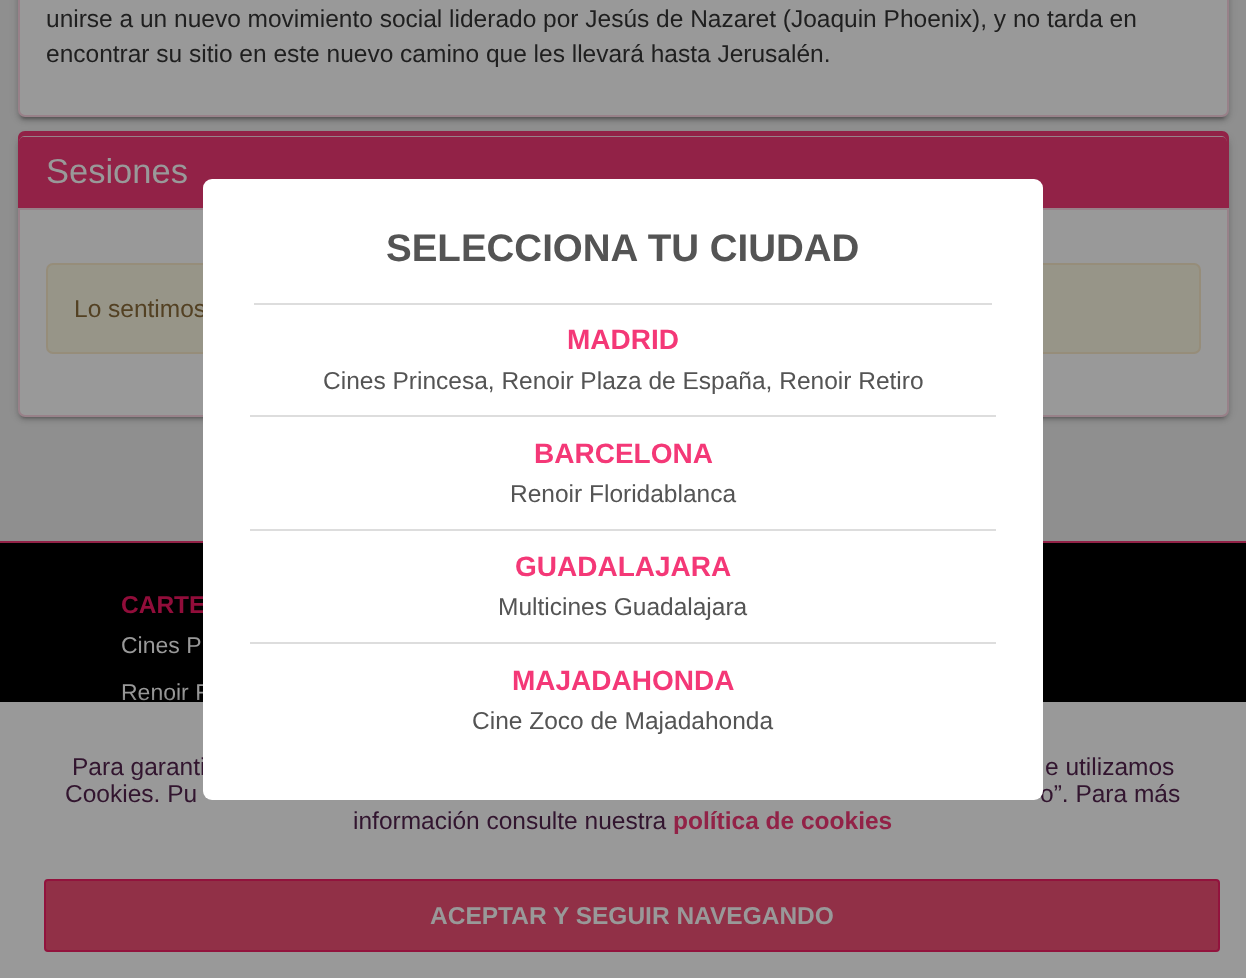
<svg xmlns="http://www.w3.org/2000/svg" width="1246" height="978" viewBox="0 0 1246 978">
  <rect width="100%" height="100%" fill="rgb(143,143,143)"/>
  <rect x="18" y="-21" width="1211" height="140" rx="7" fill="rgba(0,0,0,0.12)" filter="blur(4.5px)"/>
  <rect x="21" y="-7" width="1204" height="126" rx="4" fill="rgba(0,0,0,0.2)" filter="blur(1px)"/>
  <rect x="18" y="-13" width="1211" height="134" rx="7" fill="rgba(0,0,0,0.14)" filter="blur(2px)"/>
  <rect x="19" y="-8" width="1209" height="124" rx="6" fill="rgb(153,153,153)" stroke="rgb(152,129,137)" stroke-width="2"/>
  <g font-family="Liberation Sans" font-size="24.5" fill="rgb(31,31,31)">
    <text>
      <tspan x="46" y="27">unirse a un nuevo movimiento social liderado por Jesús de Nazaret (Joaquin Phoenix), y no tarda en</tspan>
      <tspan x="46" y="62">encontrar su sitio en este nuevo camino que les llevará hasta Jerusalén.</tspan>
    </text>
  </g>
  <rect x="18" y="137" width="1211" height="281" rx="7" fill="rgba(0,0,0,0.12)" filter="blur(4.5px)"/>
  <rect x="21" y="144" width="1204" height="274" rx="4" fill="rgba(0,0,0,0.2)" filter="blur(1px)"/>
  <rect x="18" y="138" width="1211" height="282" rx="7" fill="rgba(0,0,0,0.14)" filter="blur(2px)"/>
  <rect x="19" y="136" width="1209" height="280" rx="6" fill="rgb(153,153,153)" stroke="rgb(152,129,137)" stroke-width="2"/>
  <path d="M25 131C21 131 18 134 18 138V208H19V142C19 139 22 136 24 136H1222C1224 136 1227 139 1227 142V208H1229V138C1229 134 1226 131 1222 131Z" fill="rgb(146,34,71)"/>
  <path d="M24 137H1222C1225 137 1227 139 1227 142V210H19V142C19 139 21 137 24 137Z" fill="rgb(146,34,71)"/>
  <rect x="19" y="208" width="1208" height="2" fill="rgb(152,129,137)"/>
  <text x="46" y="183" font-family="Liberation Sans" font-size="34.5" fill="rgb(153,153,153)">Sesiones</text>
  <rect x="47" y="264" width="1153" height="89" rx="6" fill="rgb(151,149,136)" stroke="rgb(150,141,122)" stroke-width="2"/>
  <text x="74" y="317" font-family="Liberation Sans" font-size="24.5" fill="rgb(83,65,35)">Lo sentimos</text>
  <rect x="0" y="543" width="1246" height="159" fill="rgb(0,0,0)"/>
  <rect x="0" y="541" width="1246" height="2" fill="rgb(146,34,71)"/>
  <text x="121" y="613" font-family="Liberation Sans" font-size="24.5" font-weight="bold" fill="rgb(145,13,58)">CARTE</text>
  <g font-family="Liberation Sans" font-size="23" fill="rgb(153,153,153)">
    <text x="121" y="653">Cines P</text>
    <text x="121" y="700">Renoir R</text>
  </g>
  <rect x="0" y="697" width="1246" height="276" fill="rgba(0,0,0,0.15)" filter="blur(2.5px)"/>
  <rect x="0" y="702" width="1246" height="276" fill="rgb(153,153,153)"/>
  <g font-family="Liberation Sans" font-size="24.5" fill="rgb(50,21,47)">
    <text x="72" y="775">Para garanti</text>
    <text x="1040" y="802">o”. Para más</text>
  </g>
  <rect x="203" y="179" width="840" height="621" rx="9" fill="rgb(255,255,255)"/>
  <text x="386" y="261" font-family="Liberation Sans" font-size="38.5" font-weight="bold" fill="rgb(84,84,84)">SELECCIONA TU CIUDAD</text>
  <rect x="254" y="303" width="738" height="2" fill="rgb(221,221,221)"/>
  <text x="567" y="349" font-family="Liberation Sans" font-size="28" font-weight="bold" fill="rgb(244,56,119)">MADRID</text>
  <text x="323" y="389" font-family="Liberation Sans" font-size="24.5" fill="rgb(84,84,84)">Cines Princesa, Renoir Plaza de España, Renoir Retiro</text>
  <rect x="250" y="415" width="746" height="2" fill="rgb(221,221,221)"/>
  <text x="534" y="463" font-family="Liberation Sans" font-size="28" font-weight="bold" fill="rgb(244,56,119)">BARCELONA</text>
  <text x="510" y="502" font-family="Liberation Sans" font-size="24.5" fill="rgb(84,84,84)">Renoir Floridablanca</text>
  <rect x="250" y="529" width="746" height="2" fill="rgb(221,221,221)"/>
  <text x="515" y="576" font-family="Liberation Sans" font-size="28" font-weight="bold" fill="rgb(244,56,119)">GUADALAJARA</text>
  <text x="498" y="615" font-family="Liberation Sans" font-size="24.5" fill="rgb(84,84,84)">Multicines Guadalajara</text>
  <rect x="250" y="642" width="746" height="2" fill="rgb(221,221,221)"/>
  <text x="512" y="690" font-family="Liberation Sans" font-size="28" font-weight="bold" fill="rgb(244,56,119)">MAJADAHONDA</text>
  <text x="472" y="729" font-family="Liberation Sans" font-size="24.5" fill="rgb(84,84,84)">Cine Zoco de Majadahonda</text>
  <g font-family="Liberation Sans" font-size="24.5" fill="rgb(50,21,47)">
    <text x="1045" y="775">e utilizamos</text>
    <text x="65" y="802">Cookies. Pu</text>
    <text x="353" y="829">información consulte nuestra</text>
  </g>
  <text x="673" y="829" font-family="Liberation Sans" font-size="24.5" font-weight="bold" fill="rgb(146,34,71)">política de cookies</text>
  <rect x="45" y="880" width="1174" height="71" rx="3" fill="rgb(145,48,71)" stroke="rgb(146,19,61)" stroke-width="2"/>
  <text x="430" y="924" font-family="Liberation Sans" font-size="24.5" font-weight="bold" fill="rgb(153,153,153)">ACEPTAR Y SEGUIR NAVEGANDO</text>
</svg>
